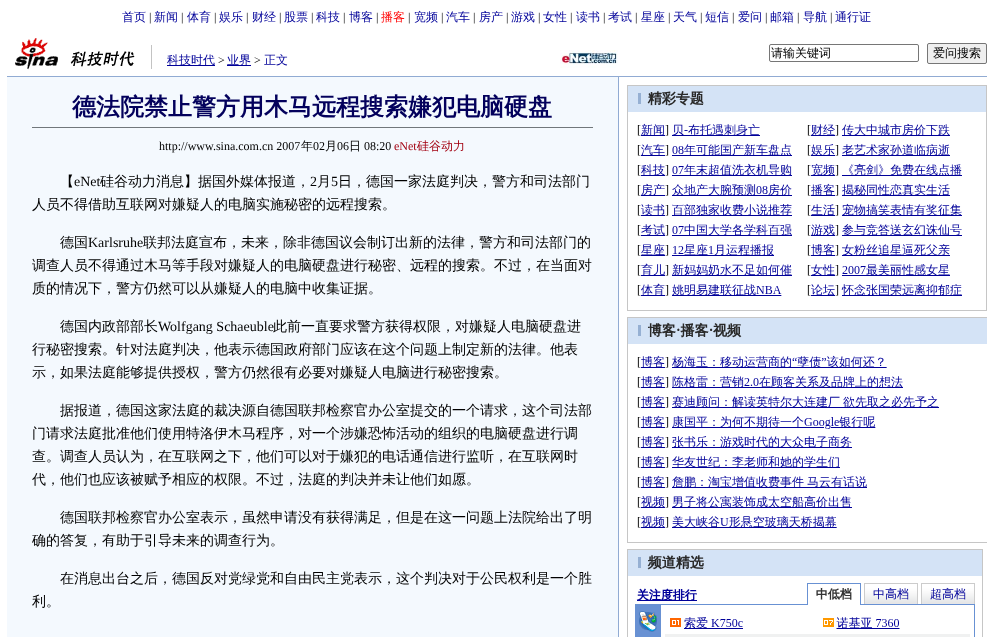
<svg xmlns="http://www.w3.org/2000/svg" width="993" height="637" viewBox="0 0 993 637">
  <rect width="100%" height="100%" fill="rgb(255,255,255)"/>
  <text x="122" y="21" font-family="WenQuanYi Zen Hei" font-size="12" font-weight="500" fill="rgb(0,0,153)">首页</text>
  <text x="149" y="21" font-family="Liberation Serif" font-size="12" fill="rgb(0,0,0)">|</text>
  <text x="154" y="21" font-family="WenQuanYi Zen Hei" font-size="12" font-weight="500" fill="rgb(0,0,153)">新闻</text>
  <text x="181" y="21" font-family="Liberation Serif" font-size="12" fill="rgb(0,0,0)">|</text>
  <text x="187" y="21" font-family="WenQuanYi Zen Hei" font-size="12" font-weight="500" fill="rgb(0,0,153)">体育</text>
  <text x="214" y="21" font-family="Liberation Serif" font-size="12" fill="rgb(0,0,0)">|</text>
  <text x="219" y="21" font-family="WenQuanYi Zen Hei" font-size="12" font-weight="500" fill="rgb(0,0,153)">娱乐</text>
  <text x="246" y="21" font-family="Liberation Serif" font-size="12" fill="rgb(0,0,0)">|</text>
  <text x="252" y="21" font-family="WenQuanYi Zen Hei" font-size="12" font-weight="500" fill="rgb(0,0,153)">财经</text>
  <text x="279" y="21" font-family="Liberation Serif" font-size="12" fill="rgb(0,0,0)">|</text>
  <text x="284" y="21" font-family="WenQuanYi Zen Hei" font-size="12" font-weight="500" fill="rgb(0,0,153)">股票</text>
  <text x="311" y="21" font-family="Liberation Serif" font-size="12" fill="rgb(0,0,0)">|</text>
  <text x="316" y="21" font-family="WenQuanYi Zen Hei" font-size="12" font-weight="500" fill="rgb(0,0,153)">科技</text>
  <text x="343" y="21" font-family="Liberation Serif" font-size="12" fill="rgb(0,0,0)">|</text>
  <text x="349" y="21" font-family="WenQuanYi Zen Hei" font-size="12" font-weight="500" fill="rgb(0,0,153)">博客</text>
  <text x="376" y="21" font-family="Liberation Serif" font-size="12" fill="rgb(0,0,0)">|</text>
  <text x="381" y="21" font-family="WenQuanYi Zen Hei" font-size="12" font-weight="500" fill="rgb(255,0,0)">播客</text>
  <text x="408" y="21" font-family="Liberation Serif" font-size="12" fill="rgb(0,0,0)">|</text>
  <text x="414" y="21" font-family="WenQuanYi Zen Hei" font-size="12" font-weight="500" fill="rgb(0,0,153)">宽频</text>
  <text x="441" y="21" font-family="Liberation Serif" font-size="12" fill="rgb(0,0,0)">|</text>
  <text x="446" y="21" font-family="WenQuanYi Zen Hei" font-size="12" font-weight="500" fill="rgb(0,0,153)">汽车</text>
  <text x="473" y="21" font-family="Liberation Serif" font-size="12" fill="rgb(0,0,0)">|</text>
  <text x="479" y="21" font-family="WenQuanYi Zen Hei" font-size="12" font-weight="500" fill="rgb(0,0,153)">房产</text>
  <text x="506" y="21" font-family="Liberation Serif" font-size="12" fill="rgb(0,0,0)">|</text>
  <text x="511" y="21" font-family="WenQuanYi Zen Hei" font-size="12" font-weight="500" fill="rgb(0,0,153)">游戏</text>
  <text x="538" y="21" font-family="Liberation Serif" font-size="12" fill="rgb(0,0,0)">|</text>
  <text x="543" y="21" font-family="WenQuanYi Zen Hei" font-size="12" font-weight="500" fill="rgb(0,0,153)">女性</text>
  <text x="570" y="21" font-family="Liberation Serif" font-size="12" fill="rgb(0,0,0)">|</text>
  <text x="576" y="21" font-family="WenQuanYi Zen Hei" font-size="12" font-weight="500" fill="rgb(0,0,153)">读书</text>
  <text x="603" y="21" font-family="Liberation Serif" font-size="12" fill="rgb(0,0,0)">|</text>
  <text x="608" y="21" font-family="WenQuanYi Zen Hei" font-size="12" font-weight="500" fill="rgb(0,0,153)">考试</text>
  <text x="635" y="21" font-family="Liberation Serif" font-size="12" fill="rgb(0,0,0)">|</text>
  <text x="641" y="21" font-family="WenQuanYi Zen Hei" font-size="12" font-weight="500" fill="rgb(0,0,153)">星座</text>
  <text x="668" y="21" font-family="Liberation Serif" font-size="12" fill="rgb(0,0,0)">|</text>
  <text x="673" y="21" font-family="WenQuanYi Zen Hei" font-size="12" font-weight="500" fill="rgb(0,0,153)">天气</text>
  <text x="700" y="21" font-family="Liberation Serif" font-size="12" fill="rgb(0,0,0)">|</text>
  <text x="705" y="21" font-family="WenQuanYi Zen Hei" font-size="12" font-weight="500" fill="rgb(0,0,153)">短信</text>
  <text x="732" y="21" font-family="Liberation Serif" font-size="12" fill="rgb(0,0,0)">|</text>
  <text x="738" y="21" font-family="WenQuanYi Zen Hei" font-size="12" font-weight="500" fill="rgb(0,0,153)">爱问</text>
  <text x="765" y="21" font-family="Liberation Serif" font-size="12" fill="rgb(0,0,0)">|</text>
  <text x="770" y="21" font-family="WenQuanYi Zen Hei" font-size="12" font-weight="500" fill="rgb(0,0,153)">邮箱</text>
  <text x="797" y="21" font-family="Liberation Serif" font-size="12" fill="rgb(0,0,0)">|</text>
  <text x="803" y="21" font-family="WenQuanYi Zen Hei" font-size="12" font-weight="500" fill="rgb(0,0,153)">导航</text>
  <text x="830" y="21" font-family="Liberation Serif" font-size="12" fill="rgb(0,0,0)">|</text>
  <text x="835" y="21" font-family="WenQuanYi Zen Hei" font-size="12" font-weight="500" fill="rgb(0,0,153)">通行证</text>
  <image x="15" y="38" width="120" height="32" href="pic1.png"/>
  <rect x="151" y="45" width="1" height="24" fill="rgb(195,195,195)"/>
  <rect x="167" y="65" width="48" height="1" fill="rgb(0,0,153)"/>
  <text x="167" y="64" font-family="WenQuanYi Zen Hei" font-size="12" font-weight="500" fill="rgb(0,0,153)">科技时代</text>
  <text x="218" y="64" font-family="Liberation Serif" font-size="12" fill="rgb(0,0,0)">&gt;</text>
  <rect x="227" y="65" width="24" height="1" fill="rgb(0,0,153)"/>
  <text x="227" y="64" font-family="WenQuanYi Zen Hei" font-size="12" font-weight="500" fill="rgb(0,0,153)">业界</text>
  <text x="254" y="64" font-family="Liberation Serif" font-size="12" fill="rgb(0,0,0)">&gt;</text>
  <text x="264" y="64" font-family="WenQuanYi Zen Hei" font-size="12" font-weight="500" fill="rgb(0,0,153)">正文</text>
  <image x="560" y="50" width="58" height="18" href="pic2.png"/>
  <rect x="769.5" y="44.5" width="149" height="17" rx="1.5" fill="none" stroke="rgb(118,118,118)"/>
  <text x="771" y="57" font-family="WenQuanYi Zen Hei" font-size="12" font-weight="500" fill="rgb(0,0,0)">请输关键词</text>
  <rect x="927.5" y="43.5" width="59" height="20" rx="1.5" fill="rgb(239,239,239)" stroke="rgb(118,118,118)"/>
  <text x="933" y="57" font-family="WenQuanYi Zen Hei" font-size="12" font-weight="500" fill="rgb(0,0,0)">爱问搜索</text>
  <rect x="7" y="77" width="611" height="560" fill="rgb(244,249,254)"/>
  <rect x="7" y="76" width="980" height="1" fill="rgb(145,171,211)"/>
  <rect x="618" y="76" width="1" height="561" fill="rgb(145,171,211)"/>
  <rect x="32" y="127" width="561" height="1" fill="rgb(113,119,123)"/>
  <text x="72" y="115" font-family="WenQuanYi Zen Hei" font-size="24" font-weight="bold" fill="rgb(3,0,92)">德法院禁止警方用木马远程搜索嫌犯电脑硬盘</text>
  <text x="159" y="150" font-family="Liberation Serif" font-size="12" fill="rgb(0,0,0)">http://www.sina.com.cn 2007</text>
  <text x="301" y="150" font-family="WenQuanYi Zen Hei" font-size="12" font-weight="500" fill="rgb(0,0,0)">年</text>
  <text x="313" y="150" font-family="Liberation Serif" font-size="12" fill="rgb(0,0,0)">02</text>
  <text x="325" y="150" font-family="WenQuanYi Zen Hei" font-size="12" font-weight="500" fill="rgb(0,0,0)">月</text>
  <text x="337" y="150" font-family="Liberation Serif" font-size="12" fill="rgb(0,0,0)">06</text>
  <text x="349" y="150" font-family="WenQuanYi Zen Hei" font-size="12" font-weight="500" fill="rgb(0,0,0)">日</text>
  <text x="364" y="150" font-family="Liberation Serif" font-size="12" fill="rgb(0,0,0)">08:20</text>
  <text x="394" y="150" font-family="Liberation Serif" font-size="12" fill="rgb(162,0,16)">eNet</text>
  <text x="417" y="150" font-family="WenQuanYi Zen Hei" font-size="12" font-weight="500" fill="rgb(162,0,16)">硅谷动力</text>
  <text x="60" y="186" font-family="WenQuanYi Zen Hei" font-size="14" font-weight="500" fill="rgb(0,0,0)">【</text>
  <text x="74" y="186" font-family="Liberation Serif" font-size="14" fill="rgb(0,0,0)">eNet</text>
  <text x="100" y="186" font-family="WenQuanYi Zen Hei" font-size="14" font-weight="500" fill="rgb(0,0,0)">硅谷动力消息】据国外媒体报道，</text>
  <text x="310" y="186" font-family="Liberation Serif" font-size="14" fill="rgb(0,0,0)">2</text>
  <text x="317" y="186" font-family="WenQuanYi Zen Hei" font-size="14" font-weight="500" fill="rgb(0,0,0)">月</text>
  <text x="331" y="186" font-family="Liberation Serif" font-size="14" fill="rgb(0,0,0)">5</text>
  <g font-family="WenQuanYi Zen Hei" font-size="14" font-weight="500" fill="rgb(0,0,0)">
    <text x="338" y="186">日，德国一家法庭判决，警方和司法部门</text>
    <text x="32" y="209">人员不得借助互联网对嫌疑人的电脑实施秘密的远程搜索。</text>
    <text x="60" y="247">德国</text>
  </g>
  <text x="88" y="247" font-family="Liberation Serif" font-size="14" fill="rgb(0,0,0)">Karlsruhe</text>
  <g font-family="WenQuanYi Zen Hei" font-size="14" font-weight="500" fill="rgb(0,0,0)">
    <text x="143" y="247">联邦法庭宣布，未来，除非德国议会制订出新的法律，警方和司法部门的</text>
    <text>
      <tspan x="32" y="270">调查人员不得通过木马等手段对嫌疑人的电脑硬盘进行秘密、远程的搜索。不过，在当面对</tspan>
      <tspan x="32" y="293">质的情况下，警方仍然可以从嫌疑人的电脑中收集证据。</tspan>
    </text>
    <text x="60" y="331">德国内政部部长</text>
  </g>
  <text x="158" y="331" font-family="Liberation Serif" font-size="14" fill="rgb(0,0,0)">Wolfgang Schaeuble</text>
  <g font-family="WenQuanYi Zen Hei" font-size="14" font-weight="500" fill="rgb(0,0,0)">
    <text x="273" y="331">此前一直要求警方获得权限，对嫌疑人电脑硬盘进</text>
    <text>
      <tspan x="32" y="354">行秘密搜索。针对法庭判决，他表示德国政府部门应该在这个问题上制定新的法律。他表</tspan>
      <tspan x="32" y="377">示，如果法庭能够提供授权，警方仍然很有必要对嫌疑人电脑进行秘密搜索。</tspan>
    </text>
    <text x="60" y="415">据报道，德国这家法庭的裁决源自德国联邦检察官办公室提交的一个请求，这个司法部</text>
    <text>
      <tspan x="32" y="438">门请求法庭批准他们使用特洛伊木马程序，对一个涉嫌恐怖活动的组织的电脑硬盘进行调</tspan>
      <tspan x="32" y="461">查。调查人员认为，在互联网之下，他们可以对于嫌犯的电话通信进行监听，在互联网时</tspan>
      <tspan x="32" y="484">代，他们也应该被赋予相应的权限。不过，法庭的判决并未让他们如愿。</tspan>
    </text>
    <text x="60" y="522">德国联邦检察官办公室表示，虽然申请没有获得满足，但是在这一问题上法院给出了明</text>
    <text x="32" y="545">确的答复，有助于引导未来的调查行为。</text>
    <text x="60" y="583">在消息出台之后，德国反对党绿党和自由民主党表示，这个判决对于公民权利是一个胜</text>
    <text x="32" y="606">利。</text>
  </g>
  <image x="627" y="85" width="360" height="226" href="pic3.png"/>
  <image x="627" y="317" width="360" height="226" href="pic4.png"/>
  <image x="627" y="549" width="356" height="88" href="pic5.png"/>
</svg>
